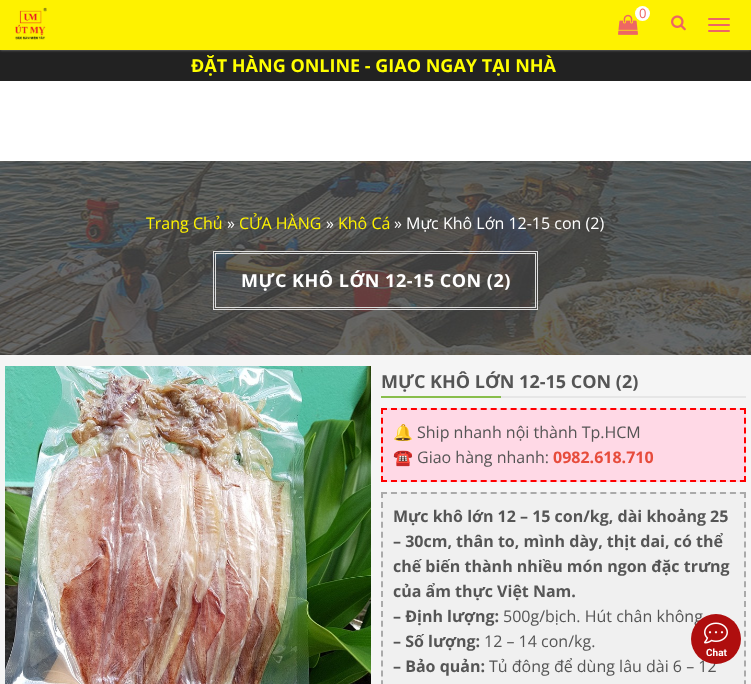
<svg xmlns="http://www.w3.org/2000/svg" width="751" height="684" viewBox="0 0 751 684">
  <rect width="100%" height="100%" fill="rgb(245,245,245)"/>
  <rect x="0" y="81" width="751" height="80" fill="rgb(255,255,255)"/>
  <rect x="0" y="50" width="751" height="31" fill="rgb(34,34,34)"/>
  <rect x="0" y="0" width="751" height="50" fill="rgb(136,136,136)" filter="blur(1.5px)"/>
  <rect x="0" y="0" width="751" height="50" fill="rgb(254,242,0)"/>
  <image x="15" y="7" width="32" height="33" href="pic1.png"/>
  <image x="618" y="14" width="20" height="21" href="pic2.png"/>
  <circle cx="642.5" cy="13.5" r="7.5" fill="rgb(255,255,255)"/>
  <text x="639" y="18" font-family="Open Sans" font-size="13" fill="rgb(237,102,99)">0</text>
  <image x="671" y="15" width="15" height="16" href="pic3.png"/>
  <rect x="708" y="18" width="22" height="2" rx="1" fill="rgb(237,102,99)"/>
  <rect x="708" y="24" width="22" height="2" rx="1" fill="rgb(237,102,99)"/>
  <rect x="708" y="30" width="22" height="2" rx="1" fill="rgb(237,102,99)"/>
  <text x="191" y="72" font-family="Open Sans" font-size="18" font-weight="bold" fill="rgb(255,255,0)">ĐẶT HÀNG ONLINE - GIAO NGAY TẠI NHÀ</text>
  <image x="0" y="161" width="751" height="194" href="pic4.png"/>
  <text x="146" y="229" font-family="Open Sans" font-size="16" fill="rgb(254,242,0)">Trang Chủ</text>
  <text x="227" y="229" font-family="Open Sans" font-size="16" fill="rgb(255,255,255)">»</text>
  <text x="239" y="229" font-family="Open Sans" font-size="16" fill="rgb(254,242,0)">CỬA HÀNG</text>
  <text x="326" y="229" font-family="Open Sans" font-size="16" fill="rgb(255,255,255)">»</text>
  <text x="338" y="229" font-family="Open Sans" font-size="16" fill="rgb(254,242,0)">Khô Cá</text>
  <text x="394" y="229" font-family="Open Sans" font-size="16" fill="rgb(255,255,255)">» Mực Khô Lớn 12-15 con (2)</text>
  <rect x="213.5" y="251.5" width="324" height="58" fill="none" stroke="rgb(221,221,221)"/>
  <rect x="215.5" y="253.5" width="320" height="54" fill="none" stroke="rgb(221,221,221)"/>
  <text x="241" y="287" font-family="Open Sans" font-size="18" font-weight="bold" letter-spacing="0.5" fill="rgb(255,255,255)">MỰC KHÔ LỚN 12-15 CON (2)</text>
  <image x="5" y="366" width="366" height="318" href="pic5.png"/>
  <rect x="501" y="396" width="245" height="2" fill="rgb(230,230,230)"/>
  <text x="381" y="388" font-family="Open Sans" font-size="18" font-weight="bold" fill="rgb(85,85,85)">MỰC KHÔ LỚN 12-15 CON (2)</text>
  <rect x="381" y="396" width="120" height="2" fill="rgb(136,190,76)"/>
  <rect x="381" y="408" width="365" height="74" fill="rgb(255,217,230)"/>
  <path d="M381 409H746" fill="none" stroke="rgb(255,0,0)" stroke-width="2" stroke-dasharray="6 3.97"/>
  <path d="M745 408V482" fill="none" stroke="rgb(255,0,0)" stroke-width="2" stroke-dasharray="6 3.71"/>
  <path d="M381 481H746" fill="none" stroke="rgb(255,0,0)" stroke-width="2" stroke-dasharray="6 3.97"/>
  <path d="M382 408V482" fill="none" stroke="rgb(255,0,0)" stroke-width="2" stroke-dasharray="6 3.71"/>
  <text x="393" y="438" font-family="Noto Color Emoji" font-size="16" fill="rgb(85,85,85)">🔔</text>
  <text x="417" y="438" font-family="Open Sans" font-size="16" fill="rgb(85,85,85)">Ship nhanh nội thành Tp.HCM</text>
  <text x="393" y="463" font-family="Noto Color Emoji" font-size="16" fill="rgb(85,85,85)">☎️</text>
  <text x="417" y="463" font-family="Open Sans" font-size="16" fill="rgb(85,85,85)">Giao hàng nhanh:</text>
  <text x="553" y="463" font-family="Open Sans" font-size="16" font-weight="bold" fill="rgb(231,76,60)">0982.618.710</text>
  <rect x="381" y="492" width="365" height="192" fill="rgb(240,240,240)"/>
  <path d="M381 493H746" fill="none" stroke="rgb(170,170,170)" stroke-width="2" stroke-dasharray="6 3.97"/>
  <path d="M745 492V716" fill="none" stroke="rgb(170,170,170)" stroke-width="2" stroke-dasharray="6 3.91"/>
  <path d="M382 492V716" fill="none" stroke="rgb(170,170,170)" stroke-width="2" stroke-dasharray="6 3.91"/>
  <g font-family="Open Sans" font-size="16" font-weight="bold" fill="rgb(85,85,85)">
    <text>
      <tspan x="393" y="522">Mực khô lớn 12 – 15 con/kg, dài khoảng 25</tspan>
      <tspan x="393" y="547">– 30cm, thân to, mình dày, thịt dai, có thể</tspan>
      <tspan x="393" y="572">chế biến thành nhiều món ngon đặc trưng</tspan>
      <tspan x="393" y="597">của ẩm thực Việt Nam.</tspan>
      <tspan x="393" y="622">– Định lượng:</tspan>
    </text>
  </g>
  <text x="503" y="622" font-family="Open Sans" font-size="16" fill="rgb(85,85,85)">500g/bịch. Hút chân không</text>
  <text x="393" y="647" font-family="Open Sans" font-size="16" font-weight="bold" fill="rgb(85,85,85)">– Số lượng:</text>
  <text x="484" y="647" font-family="Open Sans" font-size="16" fill="rgb(85,85,85)">12 – 14 con/kg.</text>
  <text x="393" y="672" font-family="Open Sans" font-size="16" font-weight="bold" fill="rgb(85,85,85)">– Bảo quản:</text>
  <text x="489" y="672" font-family="Open Sans" font-size="16" fill="rgb(85,85,85)">Tủ đông để dùng lâu dài 6 – 12</text>
  <circle cx="716" cy="639" r="25" fill="rgb(175,14,14)"/>
  <image x="704" y="622" width="24" height="22" href="pic6.png"/>
  <text x="706" y="656" font-family="Roboto" font-size="10" font-weight="bold" fill="rgb(255,255,255)">Chat</text>
</svg>
